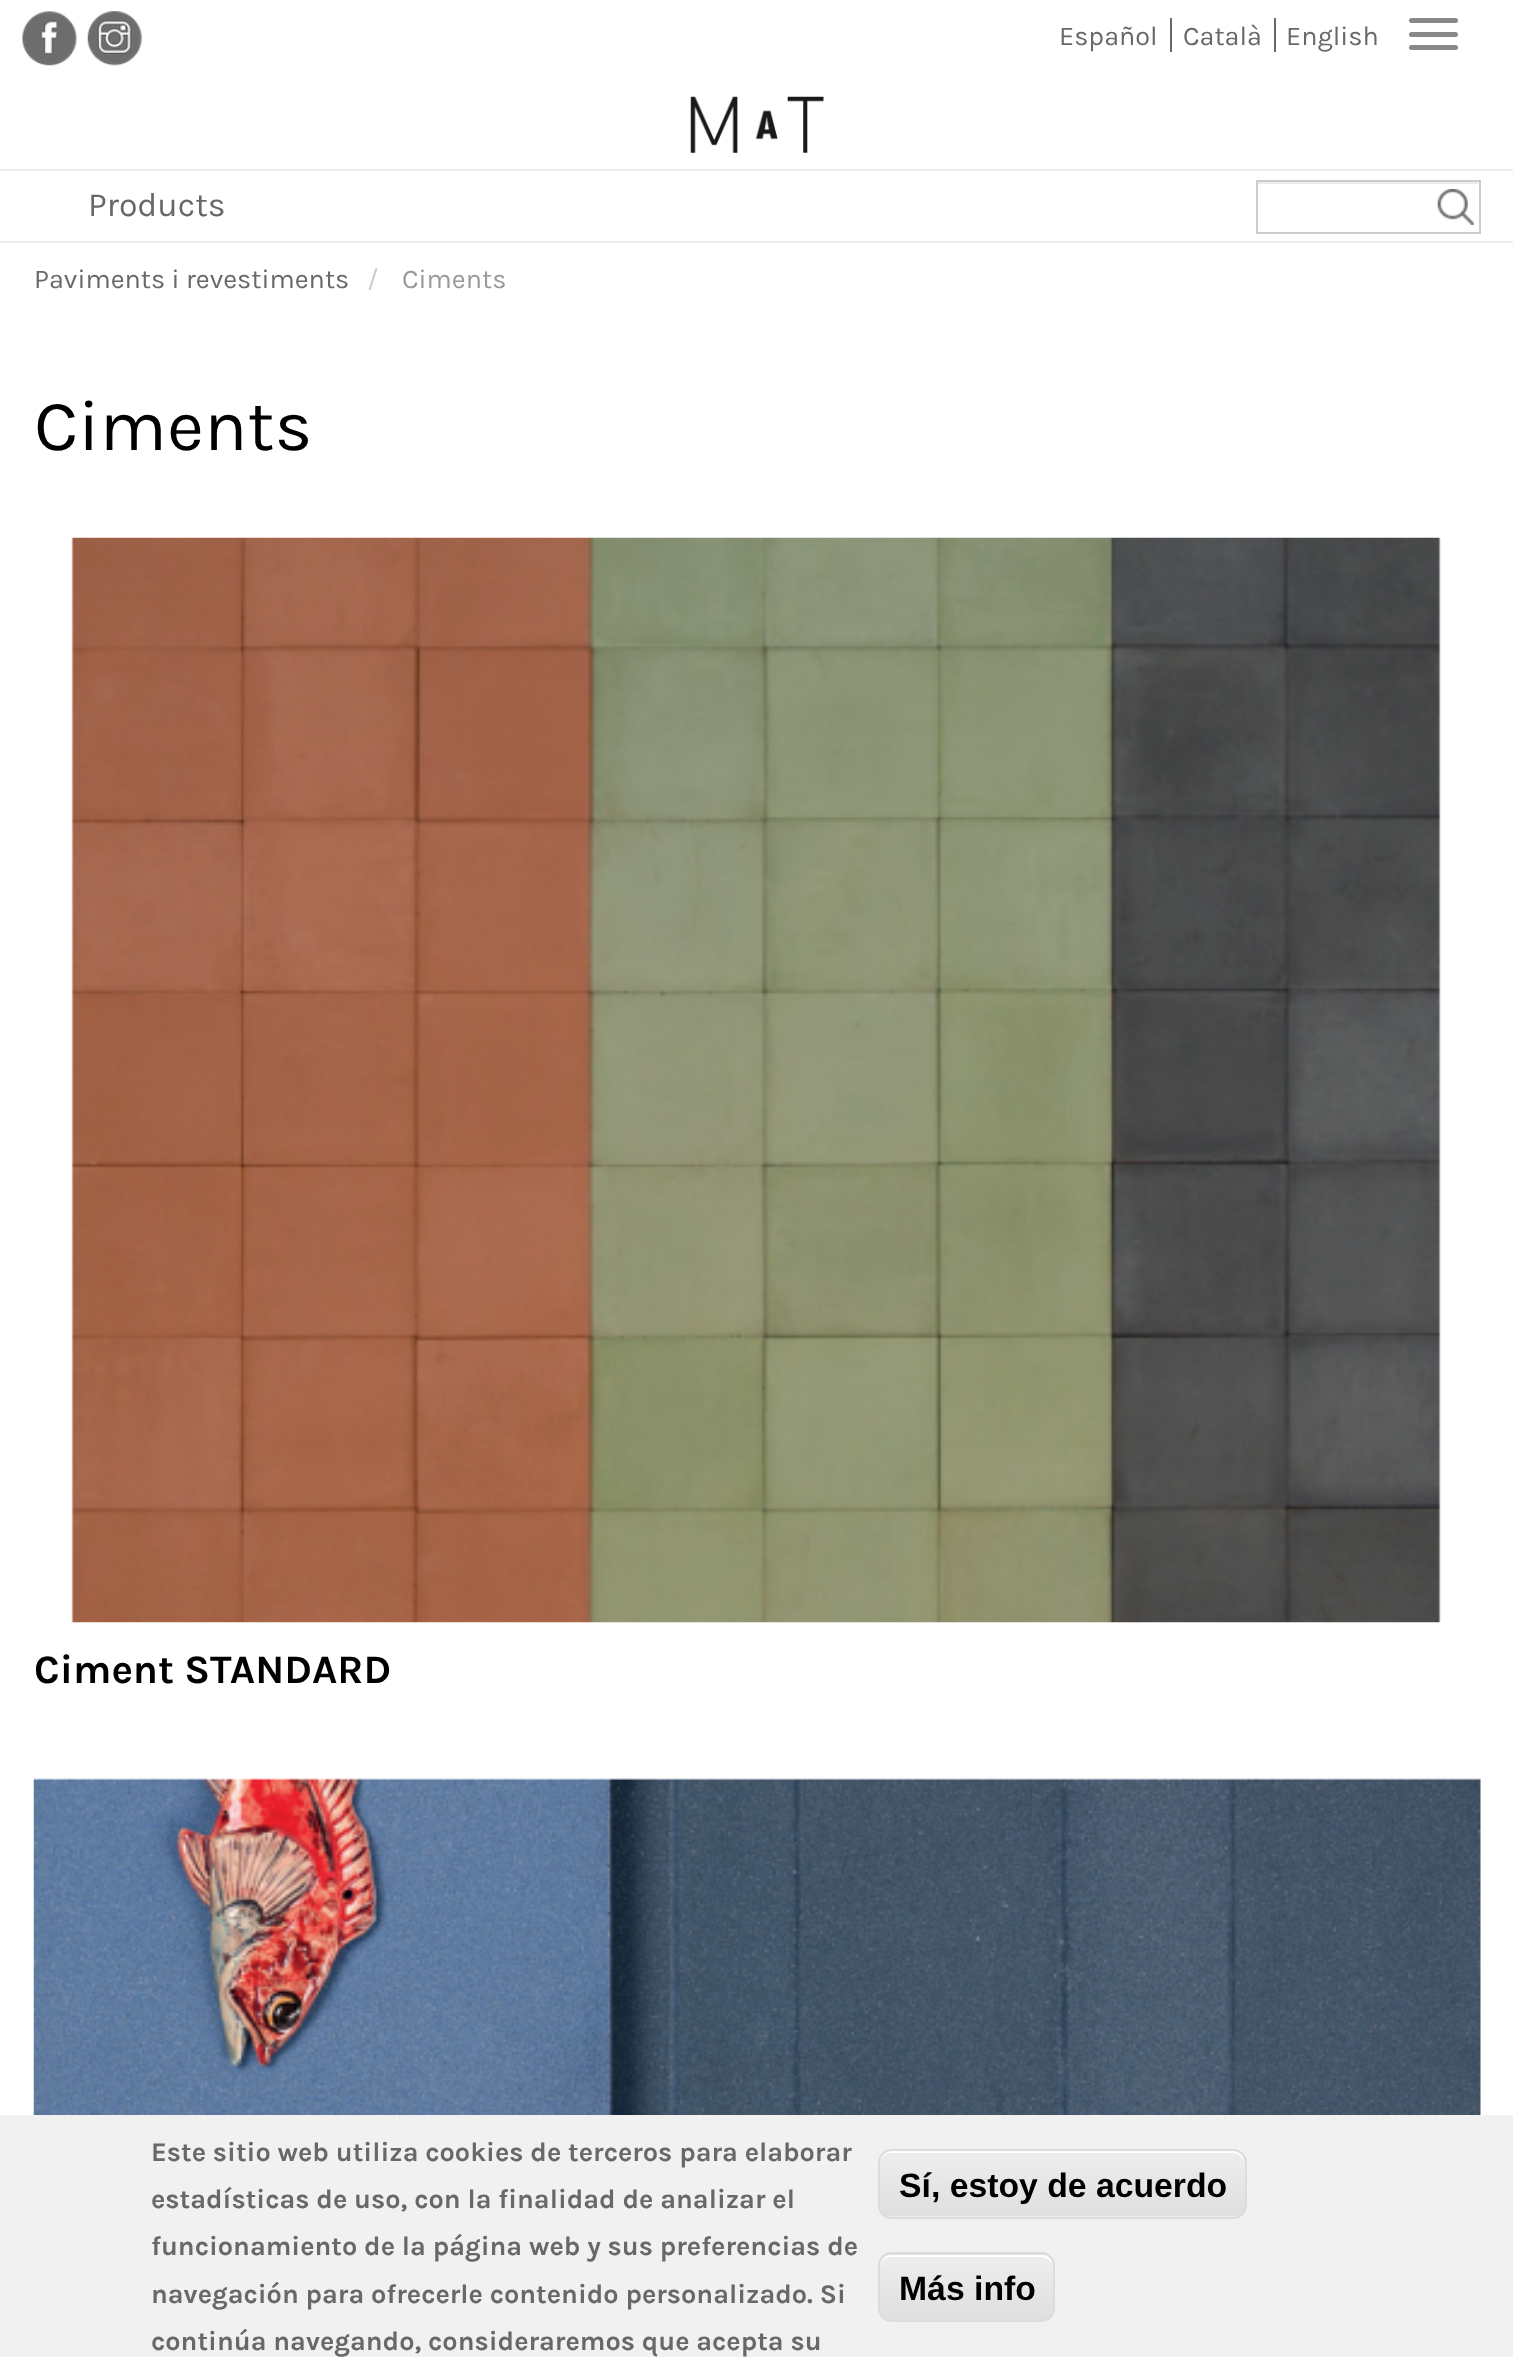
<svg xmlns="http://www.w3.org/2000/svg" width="1513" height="2357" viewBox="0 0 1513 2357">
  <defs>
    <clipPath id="clip1"><rect x="878" y="2149" width="369" height="70" rx="14"/></clipPath>
    <linearGradient id="g1" gradientUnits="userSpaceOnUse" x1="1062" y1="2151" x2="1062" y2="2216"><stop offset="0.05" stop-color="rgb(237,237,237)"/><stop offset="1" stop-color="rgb(223,223,223)"/></linearGradient>
    <clipPath id="clip2"><rect x="878" y="2252" width="177" height="70" rx="14"/></clipPath>
    <linearGradient id="g2" gradientUnits="userSpaceOnUse" x1="966" y1="2189" x2="966" y2="2255"><stop offset="0.05" stop-color="rgb(237,237,237)"/><stop offset="1" stop-color="rgb(223,223,223)"/></linearGradient>
    <linearGradient id="g3" gradientUnits="userSpaceOnUse" x1="966" y1="2255" x2="966" y2="2320"><stop offset="0.05" stop-color="rgb(237,237,237)"/><stop offset="1" stop-color="rgb(223,223,223)"/></linearGradient>
  </defs>
  <rect width="100%" height="100%" fill="rgb(255,255,255)"/>
  <image x="22" y="11" width="55" height="55" href="pic1.png"/>
  <image x="87" y="11" width="55" height="55" href="pic2.png"/>
  <rect x="1170" y="18" width="2" height="34" fill="rgb(104,104,104)"/>
  <text x="1059" y="45" font-family="Karla" font-size="27" fill="rgb(104,104,104)">Español</text>
  <rect x="1274" y="18" width="2" height="34" fill="rgb(104,104,104)"/>
  <g font-family="Karla" font-size="27" fill="rgb(104,104,104)">
    <text x="1183" y="45">Català</text>
    <text x="1286" y="45">English</text>
  </g>
  <image x="690" y="96" width="134" height="57" href="pic3.png"/>
  <rect x="1257" y="181" width="223" height="52" fill="none" stroke="rgb(204,204,204)" stroke-width="2"/>
  <image x="1437" y="189" width="37" height="36" href="pic4.png"/>
  <rect x="1258" y="182" width="220" height="2" fill="rgb(236,236,236)"/>
  <rect x="1409" y="18" width="49" height="5" rx="2.5" fill="rgb(136,136,136)"/>
  <rect x="1409" y="32" width="49" height="5" rx="2.5" fill="rgb(136,136,136)"/>
  <rect x="1409" y="45" width="49" height="5" rx="2.5" fill="rgb(136,136,136)"/>
  <rect x="0" y="169" width="1513" height="2" fill="rgb(238,238,238)"/>
  <rect x="0" y="241" width="1513" height="2" fill="rgb(238,238,238)"/>
  <text x="88" y="216" font-family="Karla" font-size="33.75" fill="rgb(104,104,104)">Products</text>
  <text x="34" y="288" font-family="Karla" font-size="27" fill="rgb(104,104,104)">Paviments i revestiments</text>
  <text x="367" y="288" font-family="Karla" font-size="27" fill="rgb(204,204,204)">/</text>
  <text x="402" y="288" font-family="Karla" font-size="27" fill="rgb(153,153,153)">Ciments</text>
  <text x="34" y="450" font-family="Karla" font-size="72" fill="rgb(0,0,0)">Ciments</text>
  <image x="71" y="537" width="1370" height="1086" href="pic5.png"/>
  <text x="34" y="1683" font-family="Karla" font-size="40.5" font-weight="bold" fill="rgb(0,0,0)">Ciment STANDARD</text>
  <image x="33" y="1778" width="1448" height="337" href="pic6.png"/>
  <rect x="0" y="2115" width="1513" height="242" fill="rgb(241,241,241)"/>
  <g font-family="Karla" font-size="27" font-weight="bold" fill="rgb(104,104,104)">
    <text>
      <tspan x="151" y="2161">Este sitio web utiliza cookies de terceros para elaborar</tspan>
      <tspan x="151" y="2208">estadísticas de uso, con la finalidad de analizar el</tspan>
      <tspan x="151" y="2255">funcionamiento de la página web y sus preferencias de</tspan>
      <tspan x="151" y="2303">navegación para ofrecerle contenido personalizado. Si</tspan>
      <tspan x="151" y="2350">continúa navegando, consideraremos que acepta su</tspan>
    </text>
  </g>
  <rect x="878" y="2149" width="369" height="70" rx="14" fill="rgb(237,237,237)"/>
  <g clip-path="url(#clip1)">
    <rect x="878" y="2151" width="369" height="65" fill="url(#g1)"/>
  </g>
  <path d="M891 2153H1233C1239 2153 1244 2158 1244 2164V2162C1244 2156 1239 2151 1233 2151H891C885 2151 880 2156 880 2162V2164C880 2158 885 2153 891 2153Z" fill="rgb(255,255,255)"/>
  <rect x="879" y="2150" width="367" height="68" rx="13" fill="none" stroke="rgb(220,220,220)" stroke-width="2"/>
  <text x="899" y="2197" font-family="Liberation Sans" font-size="33.75" font-weight="bold" fill="rgb(0,0,0)">Sí, estoy de acuerdo</text>
  <g clip-path="url(#clip2)">
    <rect x="878" y="2252" width="177" height="3" fill="url(#g2)"/>
    <rect x="878" y="2255" width="177" height="65" fill="url(#g3)"/>
  </g>
  <path d="M891 2257H1042C1048 2257 1053 2262 1053 2268V2266C1053 2260 1048 2255 1042 2255H891C885 2255 880 2260 880 2266V2268C880 2262 885 2257 891 2257Z" fill="rgb(255,255,255)"/>
  <rect x="879" y="2253" width="175" height="68" rx="13" fill="none" stroke="rgb(220,220,220)" stroke-width="2"/>
  <text x="899" y="2300" font-family="Liberation Sans" font-size="33.75" font-weight="bold" fill="rgb(0,0,0)">Más info</text>
</svg>
